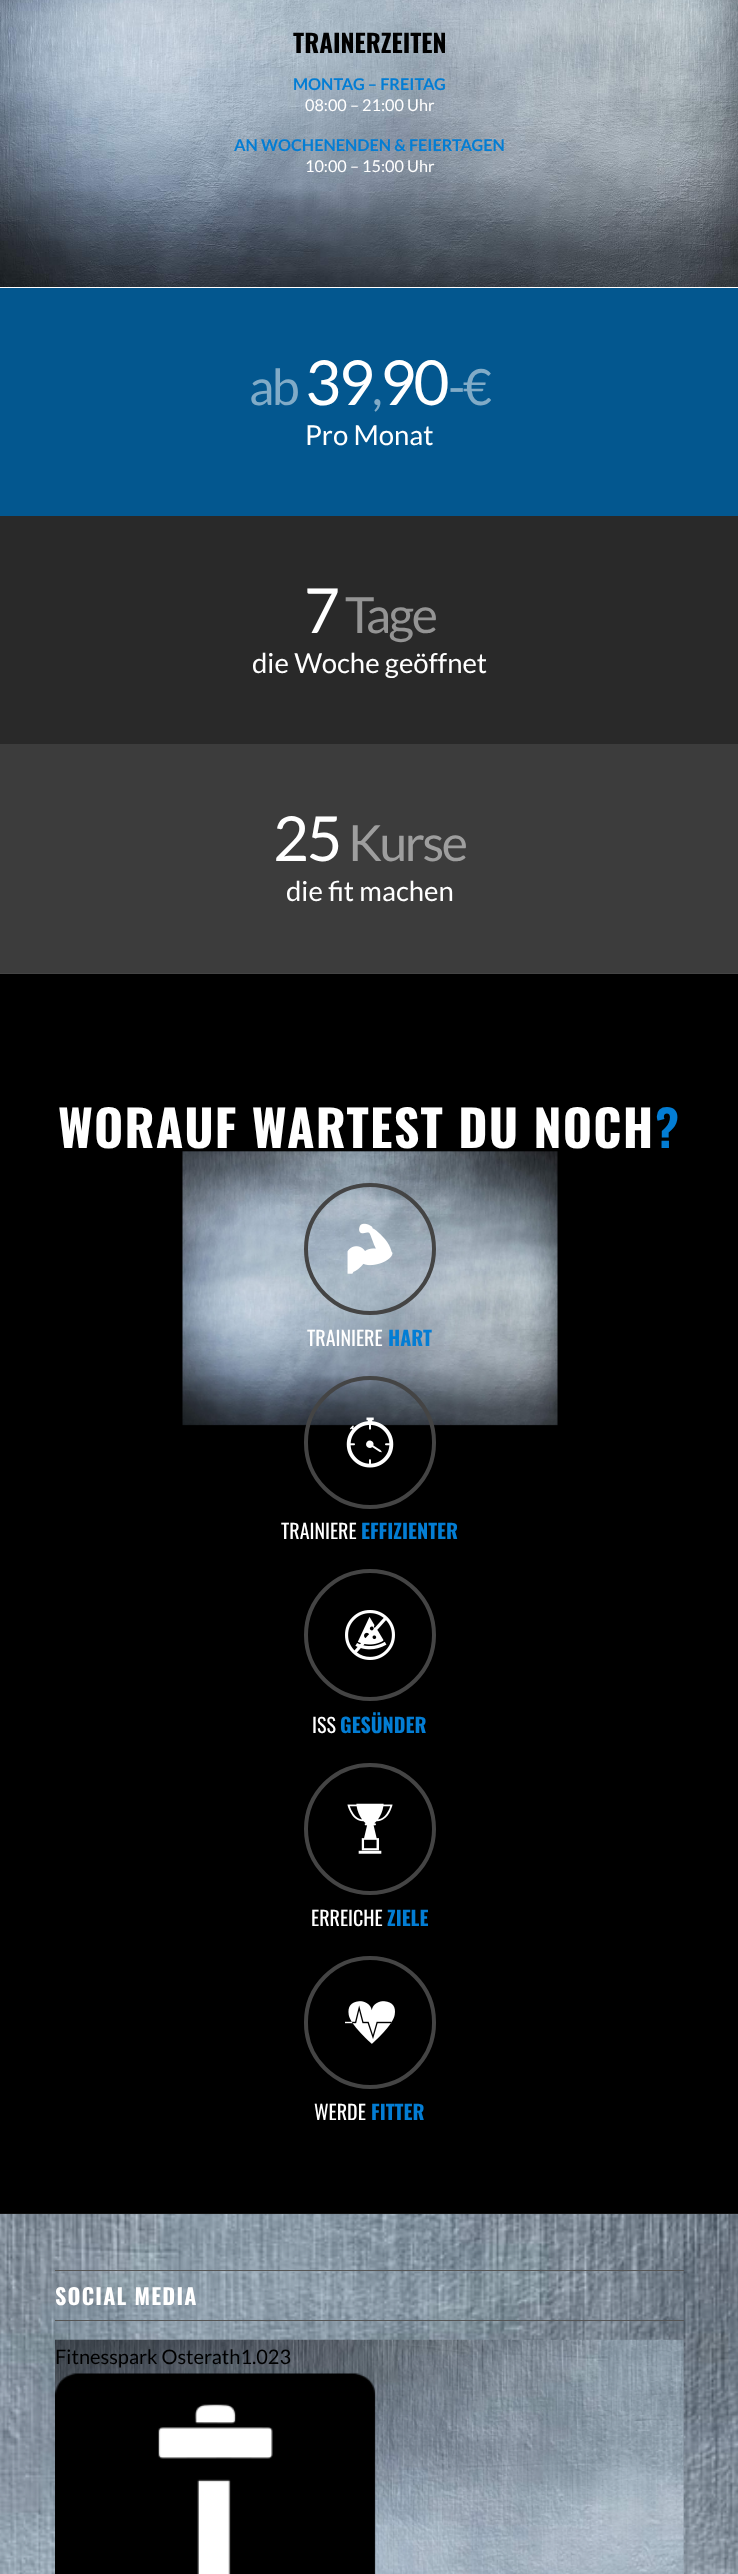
<svg xmlns="http://www.w3.org/2000/svg" width="738" height="2574" viewBox="0 0 738 2574">
  <rect width="100%" height="100%" fill="rgb(0,0,0)"/>
  <rect x="0" y="287" width="738" height="1" fill="rgb(255,255,255)"/>
  <image x="0" y="0" width="738" height="287" href="pic1.png"/>
  <text x="293" y="53" font-family="Oswald" font-size="25" font-weight="bold" fill="rgb(0,0,0)">TRAINERZEITEN</text>
  <text x="293" y="90" font-family="Lato" font-size="16.25" font-weight="bold" fill="rgb(3,125,212)">MONTAG – FREITAG</text>
  <text x="305" y="111" font-family="Lato" font-size="16.25" fill="rgb(255,255,255)">08:00 – 21:00 Uhr</text>
  <text x="234" y="151" font-family="Lato" font-size="16.25" font-weight="bold" fill="rgb(3,125,212)">AN WOCHENENDEN &amp; FEIERTAGEN</text>
  <text x="305" y="172" font-family="Lato" font-size="16.25" fill="rgb(255,255,255)">10:00 – 15:00 Uhr</text>
  <rect x="0" y="288" width="738" height="228" fill="rgb(3,87,143)"/>
  <text x="249" y="405" font-family="Lato" font-size="50" letter-spacing="-2.5" fill="rgb(129,171,199)">ab</text>
  <text x="305" y="405" font-family="Lato" font-size="62" letter-spacing="-2.5" fill="rgb(255,255,255)">39</text>
  <text x="372" y="405" font-family="Lato" font-size="50" letter-spacing="-2.5" fill="rgb(129,171,199)">,</text>
  <text x="380" y="405" font-family="Lato" font-size="62" letter-spacing="-2.5" fill="rgb(255,255,255)">90</text>
  <text x="448" y="405" font-family="Lato" font-size="50" letter-spacing="-2.5" fill="rgb(129,171,199)">-€</text>
  <text x="305" y="445" font-family="Lato" font-size="27.5" fill="rgb(255,255,255)">Pro Monat</text>
  <rect x="0" y="516" width="738" height="228" fill="rgb(41,41,41)"/>
  <text x="304" y="633" font-family="Lato" font-size="62" letter-spacing="-2.5" fill="rgb(255,255,255)">7</text>
  <text x="345" y="633" font-family="Lato" font-size="50" letter-spacing="-2.5" fill="rgb(148,148,148)">Tage</text>
  <text x="252" y="673" font-family="Lato" font-size="27.5" fill="rgb(255,255,255)">die Woche geöffnet</text>
  <rect x="0" y="744" width="738" height="229" fill="rgb(60,60,60)"/>
  <text x="273" y="861" font-family="Lato" font-size="62" letter-spacing="-2.5" fill="rgb(255,255,255)">25</text>
  <text x="348" y="861" font-family="Lato" font-size="50" letter-spacing="-2.5" fill="rgb(158,158,158)">Kurse</text>
  <text x="286" y="901" font-family="Lato" font-size="27.5" fill="rgb(255,255,255)">die fit machen</text>
  <image x="182" y="1151" width="376" height="275" href="pic2.png"/>
  <rect x="0" y="973" width="738" height="1" fill="rgb(68,68,68)"/>
  <text x="58" y="1148" font-family="Oswald" font-size="50" font-weight="bold" letter-spacing="1.25" fill="rgb(255,255,255)">WORAUF WARTEST DU NOCH</text>
  <text x="655" y="1148" font-family="Oswald" font-size="50" font-weight="600" letter-spacing="1.25" fill="rgb(3,125,212)">?</text>
  <circle cx="370" cy="1249" r="64" fill="none" stroke="rgb(68,68,68)" stroke-width="4"/>
  <image x="347" y="1223" width="46" height="51" href="pic3.png"/>
  <text x="307" y="1346" font-family="Oswald" font-size="20" fill="rgb(255,255,255)">TRAINIERE</text>
  <text x="388" y="1346" font-family="Oswald" font-size="20" font-weight="bold" fill="rgb(3,125,212)">HART</text>
  <rect x="306" y="1378" width="128" height="129" rx="64" fill="none" stroke="rgb(68,68,68)" stroke-width="4"/>
  <image x="346" y="1417" width="48" height="51" href="pic4.png"/>
  <text x="281" y="1539" font-family="Oswald" font-size="20" fill="rgb(255,255,255)">TRAINIERE</text>
  <text x="361" y="1539" font-family="Oswald" font-size="20" font-weight="bold" fill="rgb(3,125,212)">EFFIZIENTER</text>
  <circle cx="370" cy="1635" r="64" fill="none" stroke="rgb(68,68,68)" stroke-width="4"/>
  <image x="345" y="1610" width="50" height="50" href="pic5.png"/>
  <text x="312" y="1733" font-family="Oswald" font-size="20" fill="rgb(255,255,255)">ISS</text>
  <text x="340" y="1733" font-family="Oswald" font-size="20" font-weight="bold" fill="rgb(3,125,212)">GESÜNDER</text>
  <circle cx="370" cy="1829" r="64" fill="none" stroke="rgb(68,68,68)" stroke-width="4"/>
  <image x="347" y="1803" width="46" height="51" href="pic6.png"/>
  <text x="311" y="1926" font-family="Oswald" font-size="20" fill="rgb(255,255,255)">ERREICHE</text>
  <text x="387" y="1926" font-family="Oswald" font-size="20" font-weight="bold" fill="rgb(3,125,212)">ZIELE</text>
  <rect x="306" y="1958" width="128" height="129" rx="64" fill="none" stroke="rgb(68,68,68)" stroke-width="4"/>
  <image x="345" y="2001" width="50" height="43" href="pic7.png"/>
  <text x="314" y="2120" font-family="Oswald" font-size="20" fill="rgb(255,255,255)">WERDE</text>
  <text x="371" y="2120" font-family="Oswald" font-size="20" font-weight="bold" fill="rgb(3,125,212)">FITTER</text>
  <image x="0" y="2214" width="738" height="360" href="pic8.png"/>
  <rect x="0" y="2213" width="738" height="1" fill="rgb(17,17,17)"/>
  <rect x="55" y="2270" width="629" height="1" fill="rgb(85,85,85)"/>
  <rect x="55" y="2320" width="629" height="1" fill="rgb(85,85,85)"/>
  <text x="55" y="2305" font-family="Oswald" font-size="22" font-weight="bold" letter-spacing="1.25" fill="rgb(255,255,255)">SOCIAL MEDIA</text>
  <image x="55" y="2339" width="629" height="235" href="pic9.png"/>
  <text x="55" y="2364" font-family="Lato" font-size="20" fill="rgb(0,0,0)">Fitnesspark Osterath1.023</text>
  <image x="55" y="2373" width="321" height="201" href="pic10.png"/>
</svg>
